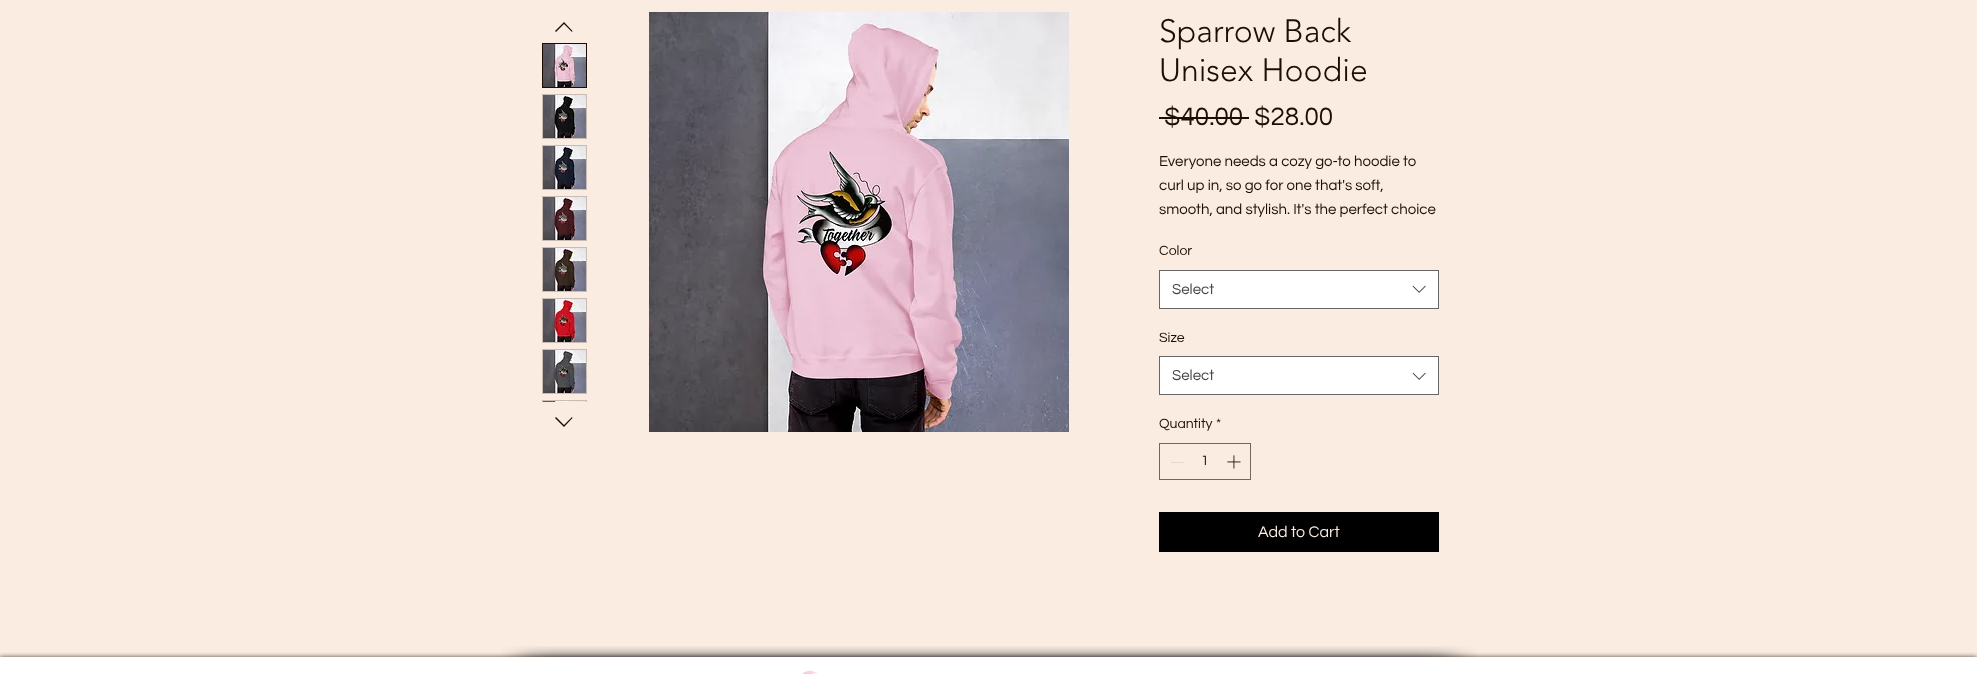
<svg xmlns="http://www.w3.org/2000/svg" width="1977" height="674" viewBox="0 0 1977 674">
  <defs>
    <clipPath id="clip1"><rect x="538" y="39" width="53" height="363"/></clipPath>
  </defs>
  <rect width="100%" height="100%" fill="rgb(250,236,225)"/>
  <path d="M564 22L572.5 31L572 32L564 24L556 32L555 31Z" fill="rgb(29,14,3)" fill-rule="evenodd"/>
  <rect x="542.5" y="43.5" width="44" height="44" fill="none" stroke="rgb(29,14,3)"/>
  <image x="543" y="44" width="43" height="43" href="pic1.png"/>
  <rect x="542.5" y="94.5" width="44" height="44" fill="none" stroke="rgb(200,189,180)"/>
  <image x="543" y="95" width="43" height="43" href="pic2.png"/>
  <rect x="542.5" y="145.5" width="44" height="44" fill="none" stroke="rgb(200,189,180)"/>
  <image x="543" y="146" width="43" height="43" href="pic3.png"/>
  <rect x="542.5" y="196.5" width="44" height="44" fill="none" stroke="rgb(200,189,180)"/>
  <image x="543" y="197" width="43" height="43" href="pic4.png"/>
  <rect x="542.5" y="247.5" width="44" height="44" fill="none" stroke="rgb(200,189,180)"/>
  <image x="543" y="248" width="43" height="43" href="pic5.png"/>
  <rect x="542.5" y="298.5" width="44" height="44" fill="none" stroke="rgb(200,189,180)"/>
  <image x="543" y="299" width="43" height="43" href="pic6.png"/>
  <rect x="542.5" y="349.5" width="44" height="44" fill="none" stroke="rgb(200,189,180)"/>
  <image x="543" y="350" width="43" height="43" href="pic7.png"/>
  <path d="M572 417L572.5 418L564 427L555 418L556 417L564 425Z" fill="rgb(29,14,3)" fill-rule="evenodd"/>
  <g clip-path="url(#clip1)">
    <rect x="542.5" y="400.5" width="44" height="44" fill="none" stroke="rgb(200,189,180)"/>
  </g>
  <image x="543" y="401" width="43" height="1" href="pic8.png"/>
  <image x="649" y="12" width="420" height="420" href="pic9.png"/>
  <g font-family="'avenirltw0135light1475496'" font-size="32" font-weight="300" fill="rgb(29,14,3)">
    <text>
      <tspan x="1159" y="42">Sparrow Back</tspan>
      <tspan x="1159" y="81">Unisex Hoodie</tspan>
    </text>
  </g>
  <text x="1164" y="125" font-family="Questrial" font-size="26" fill="rgb(29,14,3)">$40.00</text>
  <rect x="1159" y="117" width="90" height="2" fill="rgb(29,14,3)"/>
  <text x="1254" y="125" font-family="Questrial" font-size="26" fill="rgb(29,14,3)">$28.00</text>
  <g font-family="Questrial" font-size="15" fill="rgb(29,14,3)">
    <text>
      <tspan x="1159" y="166">Everyone needs a cozy go-to hoodie to</tspan>
      <tspan x="1159" y="190">curl up in, so go for one that's soft,</tspan>
      <tspan x="1159" y="214">smooth, and stylish. It's the perfect choice</tspan>
    </text>
  </g>
  <text x="1159" y="255" font-family="Questrial" font-size="14" fill="rgb(29,14,3)">Color</text>
  <rect x="1159.5" y="270.5" width="279" height="38" fill="rgb(255,255,255)" stroke="rgb(102,102,102)"/>
  <text x="1172" y="294" font-family="Questrial" font-size="15" fill="rgb(68,68,68)">Select</text>
  <image x="1412" y="285" width="14" height="8" href="pic10.png"/>
  <text x="1159" y="342" font-family="Questrial" font-size="14" fill="rgb(29,14,3)">Size</text>
  <rect x="1159.5" y="356.5" width="279" height="38" fill="rgb(255,255,255)" stroke="rgb(102,102,102)"/>
  <text x="1172" y="380" font-family="Questrial" font-size="15" fill="rgb(68,68,68)">Select</text>
  <image x="1412" y="372" width="14" height="8" href="pic10.png"/>
  <g font-family="Questrial" font-size="14" fill="rgb(29,14,3)">
    <text x="1159" y="428">Quantity</text>
    <text x="1216" y="428">*</text>
  </g>
  <rect x="1159.5" y="443.5" width="91" height="36" fill="none" stroke="rgb(117,103,92)"/>
  <rect x="1171" y="462" width="13" height="1" fill="rgb(225,218,212)"/>
  <text x="1201" y="465" font-family="Questrial" font-size="14" fill="rgb(29,14,3)">1</text>
  <image x="1227" y="455" width="14" height="14" href="pic11.png"/>
  <rect x="1159" y="512" width="280" height="40" fill="rgb(0,0,0)"/>
  <text x="1258" y="537" font-family="Questrial" font-size="16" fill="rgb(250,236,225)">Add to Cart</text>
  <rect x="0" y="657" width="1977" height="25" fill="rgba(0,0,0,0.7)" filter="blur(2.5px)"/>
  <image x="502" y="646" width="97" height="11" href="pic12.png"/>
  <image x="599" y="646" width="780" height="11" href="pic13.png"/>
  <image x="1379" y="646" width="97" height="11" href="pic14.png"/>
  <rect x="0" y="657" width="1977" height="17" fill="rgb(255,255,255)"/>
  <image x="802" y="670" width="17" height="4" href="pic15.png"/>
</svg>
